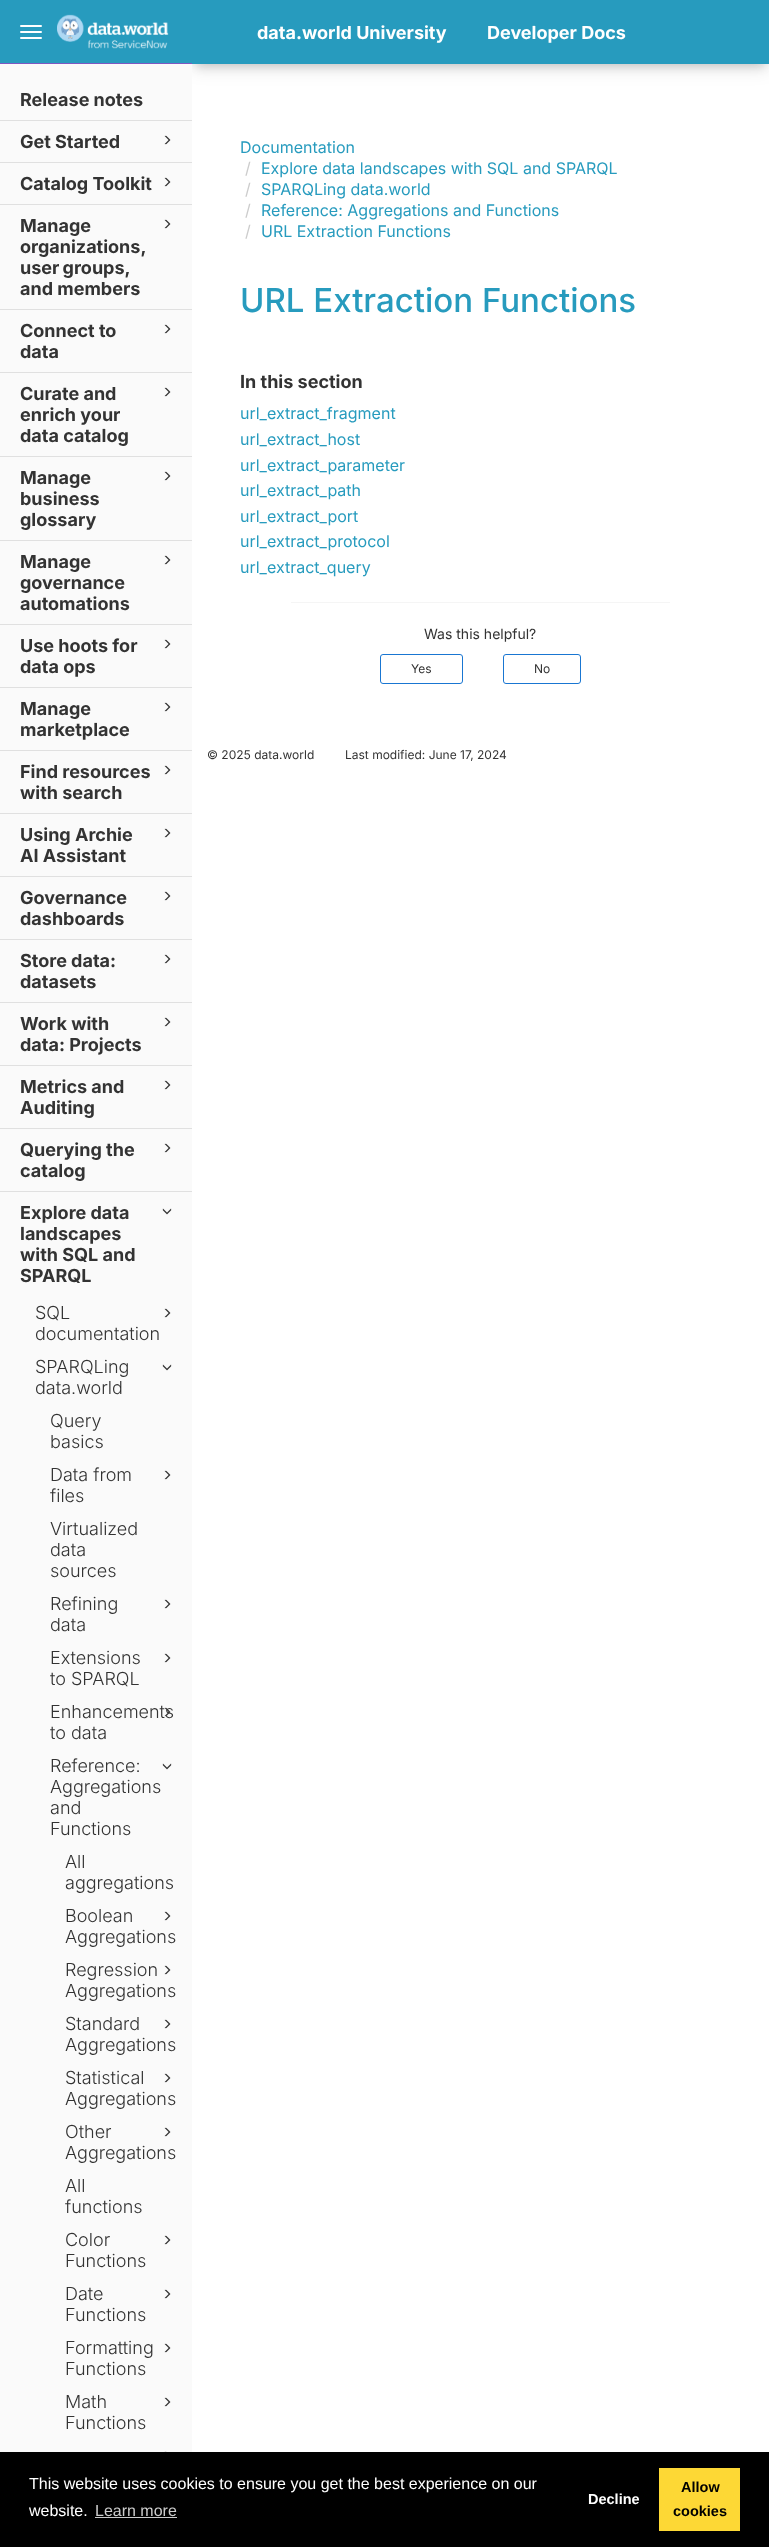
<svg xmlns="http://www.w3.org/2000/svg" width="769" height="2547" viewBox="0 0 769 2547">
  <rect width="100%" height="100%" fill="rgb(255,255,255)"/>
  <rect x="197" y="12" width="567" height="54" fill="rgba(0,0,0,0.15)" filter="blur(5px)"/>
  <rect x="192" y="4" width="577" height="64" fill="rgba(0,0,0,0.12)" filter="blur(9px)"/>
  <rect x="0" y="64" width="192" height="2388" fill="rgb(250,250,250)"/>
  <rect x="0" y="0" width="192" height="63" fill="rgb(39,155,190)"/>
  <rect x="0" y="63" width="192" height="1" fill="rgb(126,87,194)"/>
  <rect x="20" y="25" width="22" height="2" rx="1" fill="rgb(255,255,255)"/>
  <rect x="20" y="31" width="22" height="2" rx="1" fill="rgb(255,255,255)"/>
  <rect x="20" y="37" width="22" height="2" rx="1" fill="rgb(255,255,255)"/>
  <image x="57" y="14" width="112" height="35" href="pic1.png"/>
  <rect x="0" y="120" width="192" height="1" fill="rgb(224,224,224)"/>
  <text x="20" y="106" font-family="Inter" font-size="18" font-weight="bold" fill="rgb(51,51,51)">Release notes</text>
  <rect x="0" y="162" width="192" height="1" fill="rgb(224,224,224)"/>
  <text x="20" y="148" font-family="Inter" font-size="18" font-weight="bold" fill="rgb(51,51,51)">Get Started</text>
  <image x="164" y="135" width="7" height="10" href="pic2.png"/>
  <rect x="0" y="204" width="192" height="1" fill="rgb(224,224,224)"/>
  <text x="20" y="190" font-family="Inter" font-size="18" font-weight="bold" fill="rgb(51,51,51)">Catalog Toolkit</text>
  <image x="164" y="177" width="7" height="10" href="pic2.png"/>
  <rect x="0" y="309" width="192" height="1" fill="rgb(224,224,224)"/>
  <text x="20" y="232" font-family="Inter" font-size="18" font-weight="bold" fill="rgb(51,51,51)">Manage</text>
  <image x="164" y="219" width="7" height="10" href="pic2.png"/>
  <g font-family="Inter" font-size="18" font-weight="bold" fill="rgb(51,51,51)">
    <text>
      <tspan x="20" y="253">organizations,</tspan>
      <tspan x="20" y="274" word-spacing="-1">user groups,</tspan>
      <tspan x="20" y="295">and members</tspan>
    </text>
  </g>
  <rect x="0" y="372" width="192" height="1" fill="rgb(224,224,224)"/>
  <text x="20" y="337" font-family="Inter" font-size="18" font-weight="bold" fill="rgb(51,51,51)">Connect to</text>
  <image x="164" y="324" width="7" height="10" href="pic2.png"/>
  <text x="20" y="358" font-family="Inter" font-size="18" font-weight="bold" fill="rgb(51,51,51)">data</text>
  <rect x="0" y="456" width="192" height="1" fill="rgb(224,224,224)"/>
  <text x="20" y="400" font-family="Inter" font-size="18" font-weight="bold" fill="rgb(51,51,51)">Curate and</text>
  <image x="164" y="387" width="7" height="10" href="pic2.png"/>
  <g font-family="Inter" font-size="18" font-weight="bold" fill="rgb(51,51,51)">
    <text>
      <tspan x="20" y="421">enrich your</tspan>
      <tspan x="20" y="442">data catalog</tspan>
    </text>
  </g>
  <rect x="0" y="540" width="192" height="1" fill="rgb(224,224,224)"/>
  <text x="20" y="484" font-family="Inter" font-size="18" font-weight="bold" fill="rgb(51,51,51)">Manage</text>
  <image x="164" y="471" width="7" height="10" href="pic2.png"/>
  <g font-family="Inter" font-size="18" font-weight="bold" fill="rgb(51,51,51)">
    <text>
      <tspan x="20" y="505">business</tspan>
      <tspan x="20" y="526">glossary</tspan>
    </text>
  </g>
  <rect x="0" y="624" width="192" height="1" fill="rgb(224,224,224)"/>
  <text x="20" y="568" font-family="Inter" font-size="18" font-weight="bold" fill="rgb(51,51,51)">Manage</text>
  <image x="164" y="555" width="7" height="10" href="pic2.png"/>
  <g font-family="Inter" font-size="18" font-weight="bold" fill="rgb(51,51,51)">
    <text>
      <tspan x="20" y="589">governance</tspan>
      <tspan x="20" y="610">automations</tspan>
    </text>
  </g>
  <rect x="0" y="687" width="192" height="1" fill="rgb(224,224,224)"/>
  <text x="20" y="652" font-family="Inter" font-size="18" font-weight="bold" fill="rgb(51,51,51)">Use hoots for</text>
  <image x="164" y="639" width="7" height="10" href="pic2.png"/>
  <text x="20" y="673" font-family="Inter" font-size="18" font-weight="bold" fill="rgb(51,51,51)">data ops</text>
  <rect x="0" y="750" width="192" height="1" fill="rgb(224,224,224)"/>
  <text x="20" y="715" font-family="Inter" font-size="18" font-weight="bold" fill="rgb(51,51,51)">Manage</text>
  <image x="164" y="702" width="7" height="10" href="pic2.png"/>
  <text x="20" y="736" font-family="Inter" font-size="18" font-weight="bold" fill="rgb(51,51,51)">marketplace</text>
  <rect x="0" y="813" width="192" height="1" fill="rgb(224,224,224)"/>
  <text x="20" y="778" font-family="Inter" font-size="18" font-weight="bold" fill="rgb(51,51,51)">Find resources</text>
  <image x="164" y="765" width="7" height="10" href="pic2.png"/>
  <text x="20" y="799" font-family="Inter" font-size="18" font-weight="bold" fill="rgb(51,51,51)">with search</text>
  <rect x="0" y="876" width="192" height="1" fill="rgb(224,224,224)"/>
  <text x="20" y="841" font-family="Inter" font-size="18" font-weight="bold" fill="rgb(51,51,51)">Using Archie</text>
  <image x="164" y="828" width="7" height="10" href="pic2.png"/>
  <text x="20" y="862" font-family="Inter" font-size="18" font-weight="bold" fill="rgb(51,51,51)">AI Assistant</text>
  <rect x="0" y="939" width="192" height="1" fill="rgb(224,224,224)"/>
  <text x="20" y="904" font-family="Inter" font-size="18" font-weight="bold" fill="rgb(51,51,51)">Governance</text>
  <image x="164" y="891" width="7" height="10" href="pic2.png"/>
  <text x="20" y="925" font-family="Inter" font-size="18" font-weight="bold" fill="rgb(51,51,51)">dashboards</text>
  <rect x="0" y="1002" width="192" height="1" fill="rgb(224,224,224)"/>
  <text x="20" y="967" font-family="Inter" font-size="18" font-weight="bold" fill="rgb(51,51,51)">Store data:</text>
  <image x="164" y="954" width="7" height="10" href="pic2.png"/>
  <text x="20" y="988" font-family="Inter" font-size="18" font-weight="bold" fill="rgb(51,51,51)">datasets</text>
  <rect x="0" y="1065" width="192" height="1" fill="rgb(224,224,224)"/>
  <text x="20" y="1030" font-family="Inter" font-size="18" font-weight="bold" fill="rgb(51,51,51)">Work with</text>
  <image x="164" y="1017" width="7" height="10" href="pic2.png"/>
  <text x="20" y="1051" font-family="Inter" font-size="18" font-weight="bold" fill="rgb(51,51,51)">data: Projects</text>
  <rect x="0" y="1128" width="192" height="1" fill="rgb(224,224,224)"/>
  <text x="20" y="1093" font-family="Inter" font-size="18" font-weight="bold" fill="rgb(51,51,51)">Metrics and</text>
  <image x="164" y="1080" width="7" height="10" href="pic2.png"/>
  <text x="20" y="1114" font-family="Inter" font-size="18" font-weight="bold" fill="rgb(51,51,51)">Auditing</text>
  <rect x="0" y="1191" width="192" height="1" fill="rgb(224,224,224)"/>
  <text x="20" y="1156" font-family="Inter" font-size="18" font-weight="bold" fill="rgb(51,51,51)">Querying the</text>
  <image x="164" y="1143" width="7" height="10" href="pic2.png"/>
  <g font-family="Inter" font-size="18" font-weight="bold" fill="rgb(51,51,51)">
    <text x="20" y="1177">catalog</text>
    <text x="20" y="1219">Explore data</text>
  </g>
  <image x="162" y="1208" width="10" height="7" href="pic3.png"/>
  <g font-family="Inter" font-size="18" font-weight="bold" fill="rgb(51,51,51)">
    <text>
      <tspan x="20" y="1240">landscapes</tspan>
      <tspan x="20" y="1261">with SQL and</tspan>
      <tspan x="20" y="1282">SPARQL</tspan>
    </text>
  </g>
  <text x="35" y="1319" font-family="Inter" font-size="18" font-weight="300" fill="rgb(51,51,51)">SQL</text>
  <image x="164" y="1308" width="7" height="10" href="pic2.png"/>
  <g font-family="Inter" font-size="18" font-weight="300" fill="rgb(51,51,51)">
    <text>
      <tspan x="35" y="1340">documentation</tspan>
      <tspan x="35" y="1373">SPARQLing</tspan>
    </text>
  </g>
  <image x="162" y="1364" width="10" height="7" href="pic3.png"/>
  <g font-family="Inter" font-size="18" font-weight="300" fill="rgb(51,51,51)">
    <text x="35" y="1394">data.world</text>
    <text>
      <tspan x="50" y="1427">Query</tspan>
      <tspan x="50" y="1448">basics</tspan>
      <tspan x="50" y="1481">Data from</tspan>
    </text>
  </g>
  <image x="164" y="1470" width="7" height="10" href="pic2.png"/>
  <g font-family="Inter" font-size="18" font-weight="300" fill="rgb(51,51,51)">
    <text>
      <tspan x="50" y="1502">files</tspan>
      <tspan x="50" y="1535">Virtualized</tspan>
      <tspan x="50" y="1556">data</tspan>
      <tspan x="50" y="1577">sources</tspan>
      <tspan x="50" y="1610">Refining</tspan>
    </text>
  </g>
  <image x="164" y="1599" width="7" height="10" href="pic2.png"/>
  <g font-family="Inter" font-size="18" font-weight="300" fill="rgb(51,51,51)">
    <text>
      <tspan x="50" y="1631">data</tspan>
      <tspan x="50" y="1664">Extensions</tspan>
    </text>
  </g>
  <image x="164" y="1653" width="7" height="10" href="pic2.png"/>
  <g font-family="Inter" font-size="18" font-weight="300" fill="rgb(51,51,51)">
    <text>
      <tspan x="50" y="1685">to SPARQL</tspan>
      <tspan x="50" y="1718">Enhancements</tspan>
    </text>
  </g>
  <image x="164" y="1707" width="7" height="10" href="pic4.png"/>
  <g font-family="Inter" font-size="18" font-weight="300" fill="rgb(51,51,51)">
    <text>
      <tspan x="50" y="1739">to data</tspan>
      <tspan x="50" y="1772">Reference:</tspan>
    </text>
  </g>
  <image x="162" y="1763" width="10" height="7" href="pic3.png"/>
  <g font-family="Inter" font-size="18" font-weight="300" fill="rgb(51,51,51)">
    <text>
      <tspan x="50" y="1793">Aggregations</tspan>
      <tspan x="50" y="1814">and</tspan>
      <tspan x="50" y="1835">Functions</tspan>
    </text>
    <text>
      <tspan x="65" y="1868">All</tspan>
      <tspan x="65" y="1889">aggregations</tspan>
      <tspan x="65" y="1922">Boolean</tspan>
    </text>
  </g>
  <image x="164" y="1911" width="7" height="10" href="pic2.png"/>
  <g font-family="Inter" font-size="18" font-weight="300" fill="rgb(51,51,51)">
    <text>
      <tspan x="65" y="1943">Aggregations</tspan>
      <tspan x="65" y="1976">Regression</tspan>
    </text>
  </g>
  <image x="164" y="1965" width="7" height="10" href="pic2.png"/>
  <g font-family="Inter" font-size="18" font-weight="300" fill="rgb(51,51,51)">
    <text>
      <tspan x="65" y="1997">Aggregations</tspan>
      <tspan x="65" y="2030">Standard</tspan>
    </text>
  </g>
  <image x="164" y="2019" width="7" height="10" href="pic2.png"/>
  <g font-family="Inter" font-size="18" font-weight="300" fill="rgb(51,51,51)">
    <text>
      <tspan x="65" y="2051">Aggregations</tspan>
      <tspan x="65" y="2084">Statistical</tspan>
    </text>
  </g>
  <image x="164" y="2073" width="7" height="10" href="pic2.png"/>
  <g font-family="Inter" font-size="18" font-weight="300" fill="rgb(51,51,51)">
    <text>
      <tspan x="65" y="2105">Aggregations</tspan>
      <tspan x="65" y="2138">Other</tspan>
    </text>
  </g>
  <image x="164" y="2127" width="7" height="10" href="pic2.png"/>
  <g font-family="Inter" font-size="18" font-weight="300" fill="rgb(51,51,51)">
    <text>
      <tspan x="65" y="2159">Aggregations</tspan>
      <tspan x="65" y="2192">All</tspan>
      <tspan x="65" y="2213">functions</tspan>
      <tspan x="65" y="2246">Color</tspan>
    </text>
  </g>
  <image x="164" y="2235" width="7" height="10" href="pic2.png"/>
  <g font-family="Inter" font-size="18" font-weight="300" fill="rgb(51,51,51)">
    <text>
      <tspan x="65" y="2267">Functions</tspan>
      <tspan x="65" y="2300">Date</tspan>
    </text>
  </g>
  <image x="164" y="2289" width="7" height="10" href="pic2.png"/>
  <g font-family="Inter" font-size="18" font-weight="300" fill="rgb(51,51,51)">
    <text>
      <tspan x="65" y="2321">Functions</tspan>
      <tspan x="65" y="2354">Formatting</tspan>
    </text>
  </g>
  <image x="164" y="2343" width="7" height="10" href="pic2.png"/>
  <g font-family="Inter" font-size="18" font-weight="300" fill="rgb(51,51,51)">
    <text>
      <tspan x="65" y="2375">Functions</tspan>
      <tspan x="65" y="2408">Math</tspan>
    </text>
  </g>
  <image x="164" y="2397" width="7" height="10" href="pic2.png"/>
  <text x="65" y="2429" font-family="Inter" font-size="18" font-weight="300" fill="rgb(51,51,51)">Functions</text>
  <image x="164" y="2451" width="3" height="1" href="pic5.png"/>
  <rect x="192" y="0" width="577" height="64" fill="rgb(39,155,190)"/>
  <g font-family="Inter" font-size="18" font-weight="bold" fill="rgb(255,255,255)">
    <text x="257" y="39">data.world University</text>
    <text x="487" y="39">Developer Docs</text>
  </g>
  <text x="240" y="153" font-family="Inter" font-size="16" fill="rgb(39,155,190)">Documentation</text>
  <text x="245" y="174" font-family="Inter" font-size="16" fill="rgb(204,204,204)">/</text>
  <text x="261" y="174" font-family="Inter" font-size="16" fill="rgb(39,155,190)">Explore data landscapes with SQL and SPARQL</text>
  <text x="245" y="195" font-family="Inter" font-size="16" fill="rgb(204,204,204)">/</text>
  <text x="261" y="195" font-family="Inter" font-size="16" fill="rgb(39,155,190)">SPARQLing data.world</text>
  <text x="245" y="216" font-family="Inter" font-size="16" fill="rgb(204,204,204)">/</text>
  <text x="261" y="216" font-family="Inter" font-size="16" fill="rgb(39,155,190)">Reference: Aggregations and Functions</text>
  <text x="245" y="237" font-family="Inter" font-size="16" fill="rgb(204,204,204)">/</text>
  <text x="261" y="237" font-family="Inter" font-size="16" fill="rgb(39,155,190)">URL Extraction Functions</text>
  <text x="240" y="312" font-family="Inter" font-size="33" font-weight="500" fill="rgb(39,155,190)">URL Extraction Functions</text>
  <text x="240" y="388" font-family="Inter" font-size="18" font-weight="bold" fill="rgb(51,51,51)">In this section</text>
  <g font-family="Inter" font-size="16" fill="rgb(39,155,190)">
    <text>
      <tspan x="240" y="419">url_extract_fragment</tspan>
      <tspan x="240" y="445">url_extract_host</tspan>
      <tspan x="240" y="471">url_extract_parameter</tspan>
      <tspan x="240" y="496">url_extract_path</tspan>
      <tspan x="240" y="522">url_extract_port</tspan>
      <tspan x="240" y="547">url_extract_protocol</tspan>
      <tspan x="240" y="573">url_extract_query</tspan>
    </text>
  </g>
  <rect x="291" y="602" width="379" height="1" fill="rgb(245,245,245)"/>
  <text x="424" y="639" font-family="Inter" font-size="14" fill="rgb(51,51,51)">Was this helpful?</text>
  <rect x="380.5" y="654.5" width="82" height="29" rx="2.5" fill="none" stroke="rgb(25,118,210)"/>
  <text x="411" y="673" font-family="Inter" font-size="12" fill="rgb(51,51,51)">Yes</text>
  <rect x="503.5" y="654.5" width="77" height="29" rx="2.5" fill="none" stroke="rgb(25,118,210)"/>
  <g font-family="Inter" font-size="12" fill="rgb(51,51,51)">
    <text x="534" y="673">No</text>
    <text x="207" y="759">© 2025 data.world</text>
    <text x="345" y="759">Last modified: June 17, 2024</text>
  </g>
  <rect x="0" y="2452" width="769" height="95" fill="rgb(0,0,0)"/>
  <g font-family="Liberation Sans" font-size="16" fill="rgb(255,255,255)">
    <text>
      <tspan x="29" y="2489">This website uses cookies to ensure you get the best experience on our</tspan>
      <tspan x="29" y="2516">website.</tspan>
    </text>
  </g>
  <text x="95" y="2516" font-family="Liberation Sans" font-size="16" fill="rgb(204,204,204)">Learn more</text>
  <rect x="95" y="2517" width="82" height="1" fill="rgb(204,204,204)"/>
  <text x="588" y="2504" font-family="Liberation Sans" font-size="14.5" font-weight="bold" fill="rgb(255,255,255)">Decline</text>
  <rect x="659" y="2468" width="81" height="63" fill="rgb(253,216,53)"/>
  <g font-family="Liberation Sans" font-size="14.5" font-weight="bold" fill="rgb(0,0,0)">
    <text x="681" y="2492">Allow</text>
    <text x="673" y="2516">cookies</text>
  </g>
</svg>
